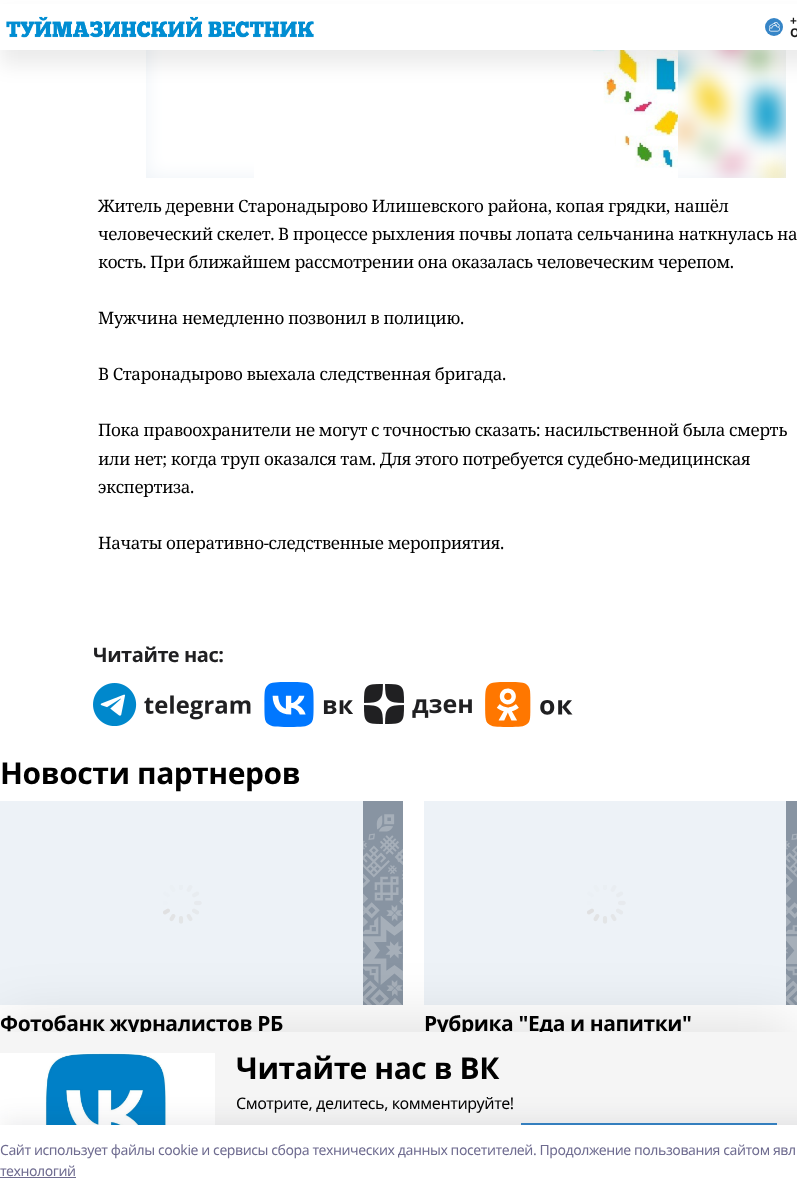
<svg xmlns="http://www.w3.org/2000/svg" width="797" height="1195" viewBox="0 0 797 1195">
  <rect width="100%" height="100%" fill="rgb(255,255,255)"/>
  <rect x="146" y="50" width="640" height="128" fill="rgb(237,242,247)"/>
  <image x="146" y="50" width="640" height="128" href="pic3.png"/>
  <image x="254" y="50" width="424" height="128" href="pic4.png"/>
  <rect x="0" y="15" width="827" height="50" fill="rgba(0,0,0,0.08)" filter="blur(10px)"/>
  <rect x="0" y="4" width="797" height="46" fill="rgb(255,255,255)"/>
  <image x="6" y="16" width="308" height="22" href="pic1.png"/>
  <circle cx="774" cy="27" r="9" fill="rgb(54,133,199)"/>
  <image x="769" y="22" width="11" height="10" href="pic2.png"/>
  <g font-family="Noto Sans" font-size="12" font-weight="bold" letter-spacing="-0.42" fill="rgb(26,26,26)">
    <text>
      <tspan x="790" y="25">+</tspan>
      <tspan x="790" y="37">О</tspan>
    </text>
  </g>
  <g font-family="Noto Serif" font-size="17" letter-spacing="-0.42" fill="rgb(0,0,0)">
    <text>
      <tspan x="98" y="212">Житель деревни Старонадырово Илишевского района, копая грядки, нашёл</tspan>
      <tspan x="98" y="240">человеческий скелет. В процессе рыхления почвы лопата сельчанина наткнулась на</tspan>
      <tspan x="98" y="268">кость. При ближайшем рассмотрении она оказалась человеческим черепом.</tspan>
    </text>
    <text x="98" y="324">Мужчина немедленно позвонил в полицию.</text>
    <text x="98" y="380">В Старонадырово выехала следственная бригада.</text>
    <text>
      <tspan x="98" y="436">Пока правоохранители не могут с точностью сказать: насильственной была смерть</tspan>
      <tspan x="98" y="465">или нет; когда труп оказался там. Для этого потребуется судебно-медицинская</tspan>
      <tspan x="98" y="493">экспертиза.</tspan>
    </text>
    <text x="98" y="549">Начаты оперативно-следственные мероприятия.</text>
  </g>
  <text x="93" y="662" font-family="Noto Sans" font-size="20" font-weight="bold" letter-spacing="-0.42" fill="rgb(32,32,34)">Читайте нас:</text>
  <image x="93" y="683" width="158" height="43" href="pic5.png"/>
  <image x="264" y="682" width="89" height="45" href="pic6.png"/>
  <image x="364" y="684" width="108" height="40" href="pic7.png"/>
  <image x="485" y="682" width="88" height="45" href="pic8.png"/>
  <text x="0" y="784" font-family="Noto Sans" font-size="30" font-weight="bold" letter-spacing="-0.42" fill="rgb(0,0,0)">Новости партнеров</text>
  <rect x="363" y="801" width="40" height="204" fill="rgb(136,148,162)"/>
  <image x="363" y="814" width="40" height="191" href="pic9.png"/>
  <rect x="0" y="801" width="363" height="204" fill="rgb(237,242,247)"/>
  <image x="163" y="885" width="39" height="39" href="pic10.png"/>
  <text x="0" y="1031" font-family="Noto Sans" font-size="21" font-weight="bold" letter-spacing="-0.42" fill="rgb(0,0,0)">Фотобанк журналистов РБ</text>
  <rect x="786" y="801" width="11" height="204" fill="rgb(136,148,162)"/>
  <image x="786" y="833" width="11" height="172" href="pic11.png"/>
  <rect x="424" y="801" width="362" height="204" fill="rgb(237,242,247)"/>
  <image x="587" y="885" width="39" height="39" href="pic10.png"/>
  <text x="424" y="1031" font-family="Noto Sans" font-size="21" font-weight="bold" letter-spacing="-0.42" fill="rgb(0,0,0)">Рубрика "Еда и напитки"</text>
  <rect x="0" y="1022" width="797" height="163" fill="rgba(0,0,0,0.12)" filter="blur(30px)"/>
  <rect x="0" y="1032" width="797" height="93" fill="rgb(245,245,245)"/>
  <rect x="521" y="1123" width="256" height="2" fill="rgb(54,133,199)"/>
  <image x="0" y="1053" width="215" height="72" href="pic12.png"/>
  <text x="236" y="1079" font-family="Noto Sans" font-size="30" font-weight="bold" letter-spacing="-0.42" fill="rgb(0,0,0)">Читайте нас в ВК</text>
  <text x="236" y="1109" font-family="Noto Sans" font-size="16" letter-spacing="-0.42" fill="rgb(0,0,0)">Смотрите, делитесь, комментируйте!</text>
  <rect x="0" y="1119" width="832" height="70" fill="rgba(20,20,43,0.08)" filter="blur(11.5px)"/>
  <rect x="0" y="1125" width="797" height="70" fill="rgb(255,255,255)"/>
  <g font-family="Noto Sans" font-size="14" letter-spacing="-0.42" fill="rgb(111,108,144)">
    <text>
      <tspan x="0" y="1155">Cайт использует файлы cookie и сервисы сбора технических данных посетителей. Продолжение пользования сайтом явл</tspan>
      <tspan x="0" y="1176">технологий</tspan>
    </text>
  </g>
  <rect x="0" y="1177" width="76" height="1" fill="rgb(111,108,144)"/>
</svg>
